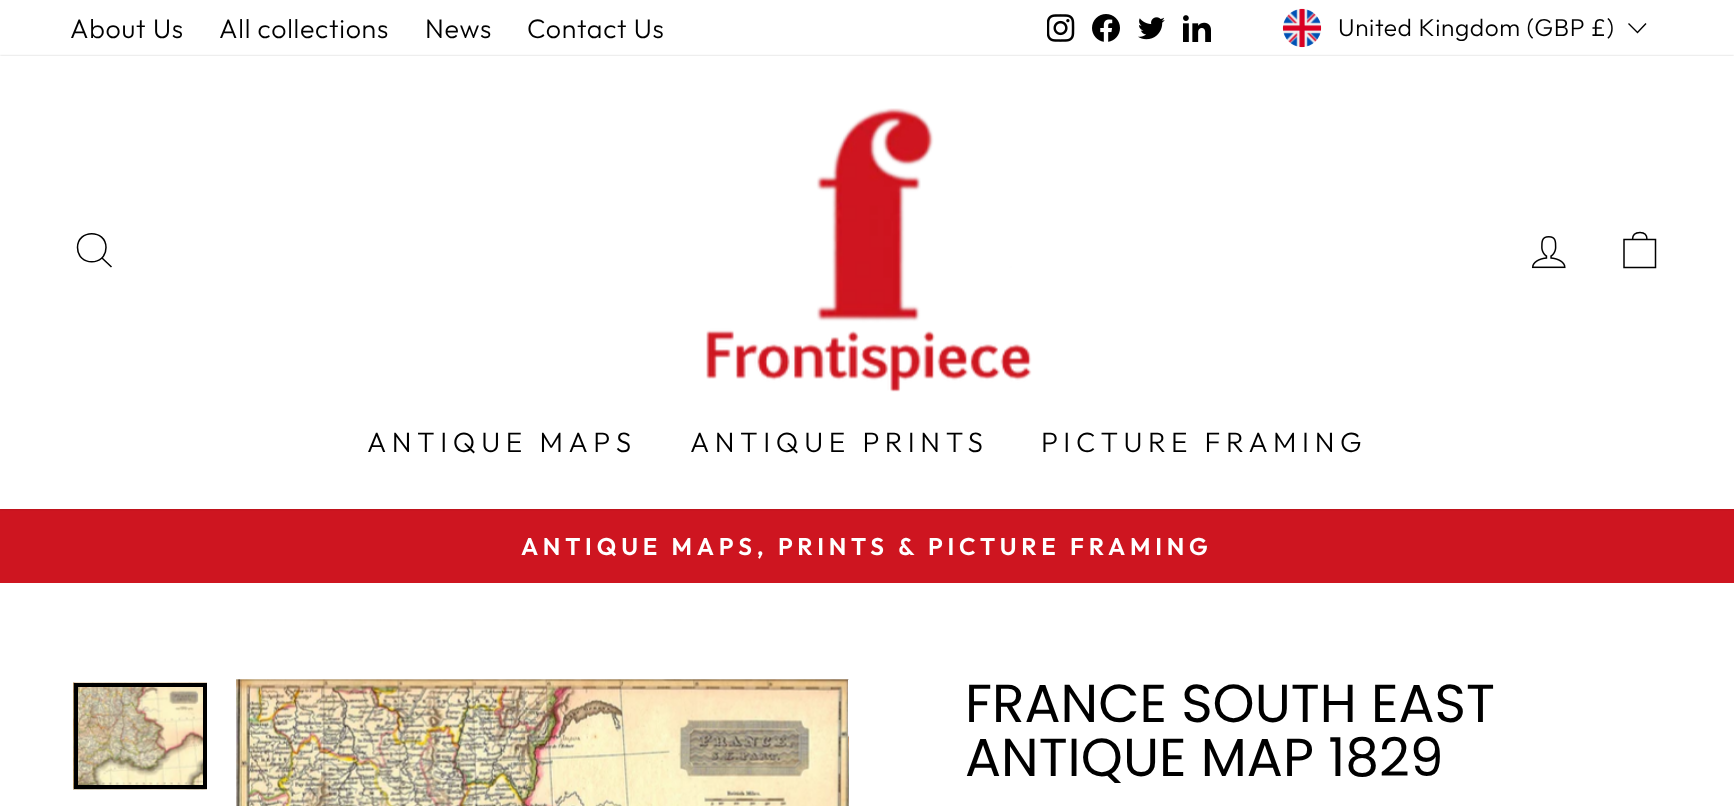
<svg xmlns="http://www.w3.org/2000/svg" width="1734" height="806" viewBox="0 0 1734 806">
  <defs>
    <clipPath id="clip1"><path d="M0 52H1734V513H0ZM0 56H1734V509H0Z" clip-rule="evenodd"/></clipPath>
  </defs>
  <rect width="100%" height="100%" fill="rgb(255,255,255)"/>
  <g font-family="Outfit" font-size="26.75" font-weight="300" letter-spacing="0.75" fill="rgb(0,0,0)">
    <text x="70" y="38">About Us</text>
    <text x="219" y="38">All collections</text>
    <text x="425" y="38">News</text>
    <text x="527" y="38">Contact Us</text>
  </g>
  <image x="1047" y="14" width="28" height="28" href="pic1.png"/>
  <image x="1092" y="14" width="28" height="28" href="pic2.png"/>
  <image x="1138" y="17" width="27" height="23" href="pic3.png"/>
  <image x="1183" y="15" width="28" height="27" href="pic4.png"/>
  <image x="1282" y="8" width="40" height="40" href="pic5.png"/>
  <text x="1338" y="36" font-family="Outfit" font-size="24.5" font-weight="300" letter-spacing="0.6" fill="rgb(0,0,0)">United Kingdom (GBP £)</text>
  <path d="M1628.5 23.5L1637.5 32.5L1646 23.5" fill="none" stroke="rgb(0,0,0)" stroke-width="1.4"/>
  <rect x="0" y="509" width="1734" height="74" fill="rgb(206,21,32)"/>
  <g clip-path="url(#clip1)">
    <rect x="0" y="56" width="1734" height="453" fill="rgba(0,0,0,0.2)" filter="blur(1px)"/>
  </g>
  <path d="M106 247.5C106 266.5 77.5 266.5 77.5 247.5C77.5 229 106 229 106 247.5ZM111.5 267L102 258" fill="none" stroke="rgb(0,0,0)" stroke-width="1.5"/>
  <image x="706" y="108" width="326" height="284" href="pic6.png"/>
  <image x="1531" y="236" width="35" height="33" href="pic7.png"/>
  <path d="M1624 239.5H1655.5V267.5H1624ZM1632.5 239.5C1632.5 234 1635.5 232.5 1640 232.5C1644 232.5 1647 234 1647 239.5" fill="none" stroke="rgb(0,0,0)" stroke-width="1.5"/>
  <g font-family="Outfit" font-size="28" font-weight="300" letter-spacing="5.6" fill="rgb(0,0,0)">
    <text x="367" y="452">ANTIQUE MAPS</text>
    <text x="690" y="452">ANTIQUE PRINTS</text>
    <text x="1041" y="452">PICTURE FRAMING</text>
  </g>
  <text x="521" y="555" font-family="Outfit" font-size="24.1" font-weight="600" letter-spacing="4.8" fill="rgb(255,255,255)">ANTIQUE MAPS, PRINTS &amp; PICTURE FRAMING</text>
  <image x="73" y="682" width="134" height="108" href="pic8.png"/>
  <rect x="76" y="685" width="129" height="102" fill="none" stroke="rgb(0,0,0)" stroke-width="4"/>
  <image x="236" y="679" width="613" height="127" href="pic9.png"/>
  <image x="848" y="679" width="1" height="127" href="pic10.png"/>
  <g font-family="Poppins" font-size="53.5" fill="rgb(0,0,0)">
    <text>
      <tspan x="965" y="722">FRANCE SOUTH EAST</tspan>
      <tspan x="965" y="776">ANTIQUE MAP 1829</tspan>
    </text>
  </g>
</svg>
